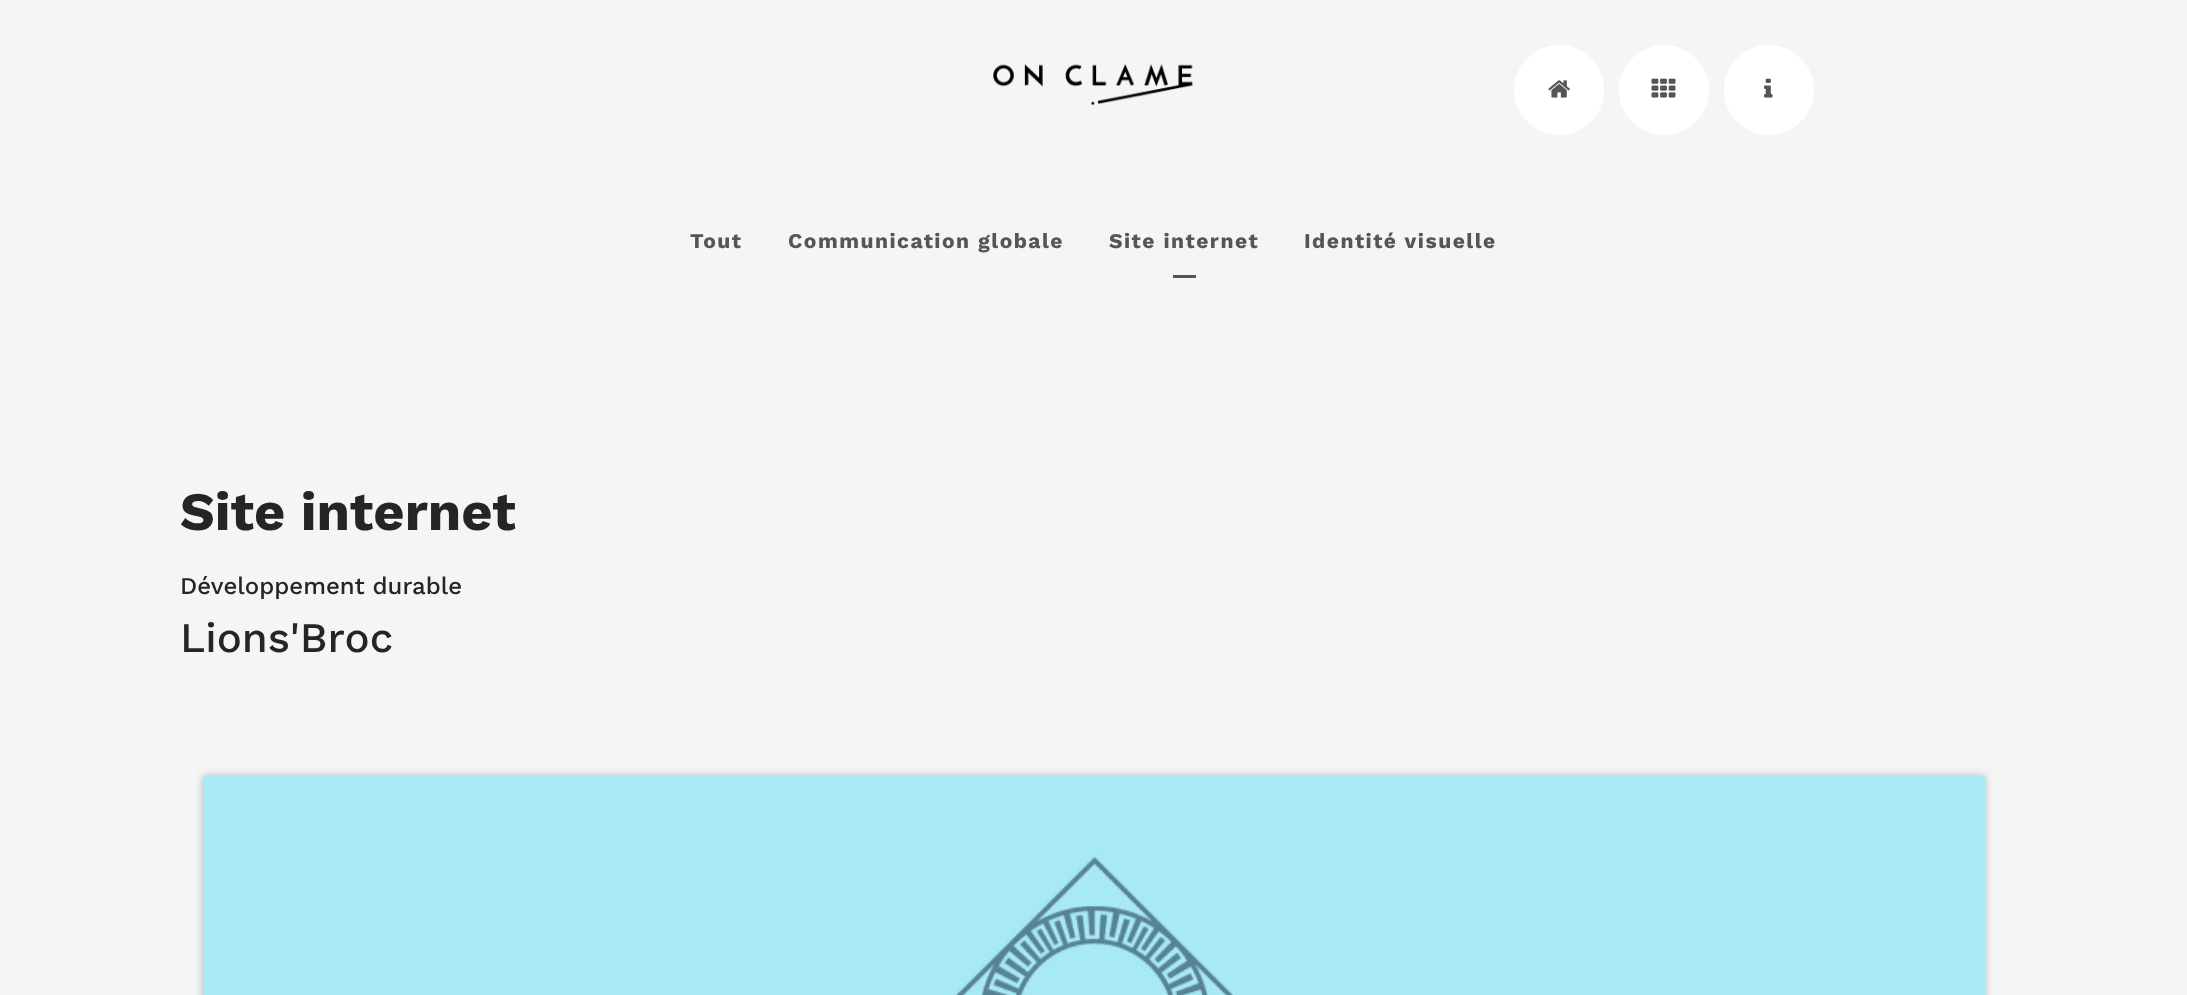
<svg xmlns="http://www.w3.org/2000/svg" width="2187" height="995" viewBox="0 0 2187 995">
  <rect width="100%" height="100%" fill="rgb(245,245,245)"/>
  <image x="993" y="64" width="200" height="41" href="pic1.png"/>
  <circle cx="1559" cy="90" r="45" fill="rgb(255,255,255)"/>
  <image x="1548" y="80" width="22" height="18" href="pic2.png"/>
  <circle cx="1664" cy="90" r="45" fill="rgb(255,255,255)"/>
  <image x="1651" y="78" width="25" height="20" href="pic3.png"/>
  <circle cx="1769" cy="90" r="45" fill="rgb(255,255,255)"/>
  <image x="1764" y="78" width="9" height="20" href="pic4.png"/>
  <g font-family="Work Sans" font-size="21" font-weight="bold" letter-spacing="1.5" fill="rgb(85,85,85)">
    <text x="690" y="248">Tout</text>
    <text x="788" y="248">Communication globale</text>
    <text x="1109" y="248">Site internet</text>
  </g>
  <rect x="1173" y="275" width="23" height="3" fill="rgb(85,85,85)"/>
  <text x="1304" y="248" font-family="Work Sans" font-size="21" font-weight="bold" letter-spacing="1.5" fill="rgb(85,85,85)">Identité visuelle</text>
  <text x="180" y="530" font-family="Work Sans" font-size="54" font-weight="bold" fill="rgb(37,37,37)">Site internet</text>
  <text x="180" y="594" font-family="Work Sans" font-size="24" font-weight="500" fill="rgb(37,37,37)">Développement durable</text>
  <text x="180" y="652" font-family="Work Sans" font-size="42" font-weight="500" fill="rgb(37,37,37)">Lions'Broc</text>
  <rect x="203" y="776" width="1782" height="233" fill="rgba(0,0,0,0.25)" filter="blur(4.5px)"/>
  <image x="203" y="775" width="1782" height="220" href="pic5.png"/>
</svg>
